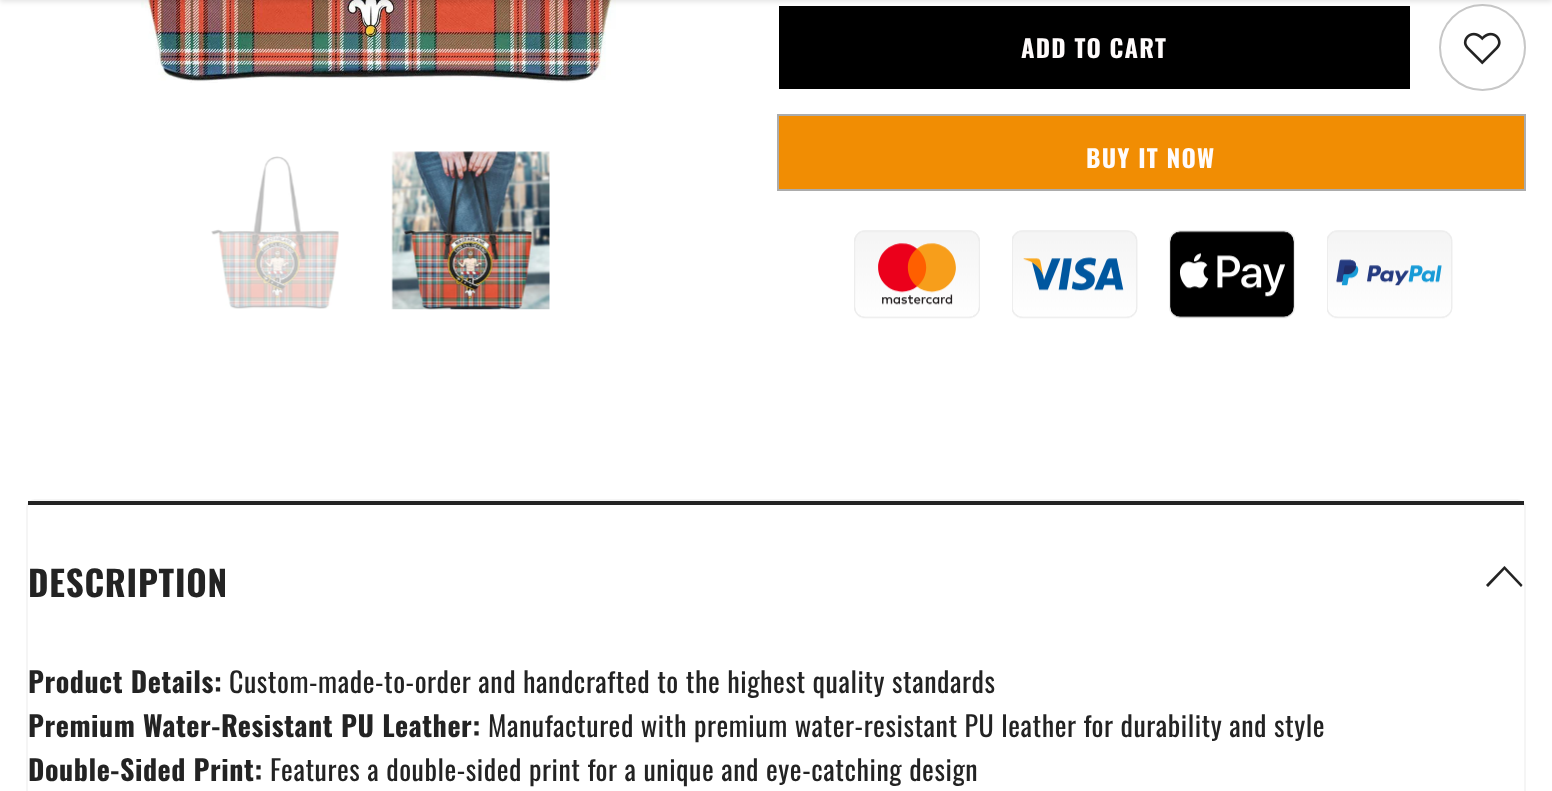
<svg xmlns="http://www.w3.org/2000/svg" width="1552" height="791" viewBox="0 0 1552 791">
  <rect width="100%" height="100%" fill="rgb(255,255,255)"/>
  <image x="141" y="0" width="475" height="83" href="pic1.png"/>
  <rect x="779" y="6" width="631" height="83" fill="rgb(0,0,0)"/>
  <circle cx="1482.5" cy="47.5" r="42.5" fill="none" stroke="rgb(199,199,199)" stroke-width="2"/>
  <rect x="0" y="-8" width="1552" height="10" fill="rgba(0,0,0,0.1)" filter="blur(2.5px)"/>
  <image x="211" y="156" width="128" height="153" href="pic2.png"/>
  <image x="391" y="151" width="159" height="159" href="pic3.png"/>
  <text x="1021" y="58" font-family="Oswald" font-size="24.5" font-weight="bold" letter-spacing="1.25" fill="rgb(255,251,251)">ADD TO CART</text>
  <image x="1463" y="32" width="38" height="33" href="pic4.png"/>
  <rect x="778" y="115" width="747" height="75" fill="rgb(241,141,3)" stroke="rgb(172,172,172)" stroke-width="2"/>
  <text x="1086" y="168" font-family="Oswald" font-size="24.5" font-weight="bold" letter-spacing="1.25" fill="rgb(255,251,251)">BUY IT NOW</text>
  <image x="854" y="230" width="599" height="89" href="pic5.png"/>
  <rect x="27" y="500" width="1498" height="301" rx="8" fill="none" stroke="rgb(245,245,245)" stroke-width="2"/>
  <rect x="28" y="501" width="1496" height="4" fill="rgb(35,35,35)"/>
  <text x="28" y="597" font-family="Oswald" font-size="35" font-weight="bold" letter-spacing="0.75" fill="rgb(35,35,35)">DESCRIPTION</text>
  <path d="M1522.5 585L1521 587L1504.5 569.5L1488 587L1486 585L1504.5 566Z" fill="rgb(35,35,35)" stroke="rgb(35,35,35)" stroke-width="0.1"/>
  <text x="28" y="693" font-family="Oswald" font-size="28" font-weight="bold" letter-spacing="0.55" fill="rgb(35,35,35)">Product Details:</text>
  <text x="229" y="693" font-family="Oswald" font-size="28" letter-spacing="0.55" fill="rgb(35,35,35)">Custom-made-to-order and handcrafted to the highest quality standards</text>
  <text x="28" y="737" font-family="Oswald" font-size="28" font-weight="bold" letter-spacing="0.55" fill="rgb(35,35,35)">Premium Water-Resistant PU Leather:</text>
  <text x="488" y="737" font-family="Oswald" font-size="28" letter-spacing="0.55" fill="rgb(35,35,35)">Manufactured with premium water-resistant PU leather for durability and style</text>
  <text x="28" y="781" font-family="Oswald" font-size="28" font-weight="bold" letter-spacing="0.55" fill="rgb(35,35,35)">Double-Sided Print:</text>
  <text x="270" y="781" font-family="Oswald" font-size="28" letter-spacing="0.55" fill="rgb(35,35,35)">Features a double-sided print for a unique and eye-catching design</text>
</svg>
